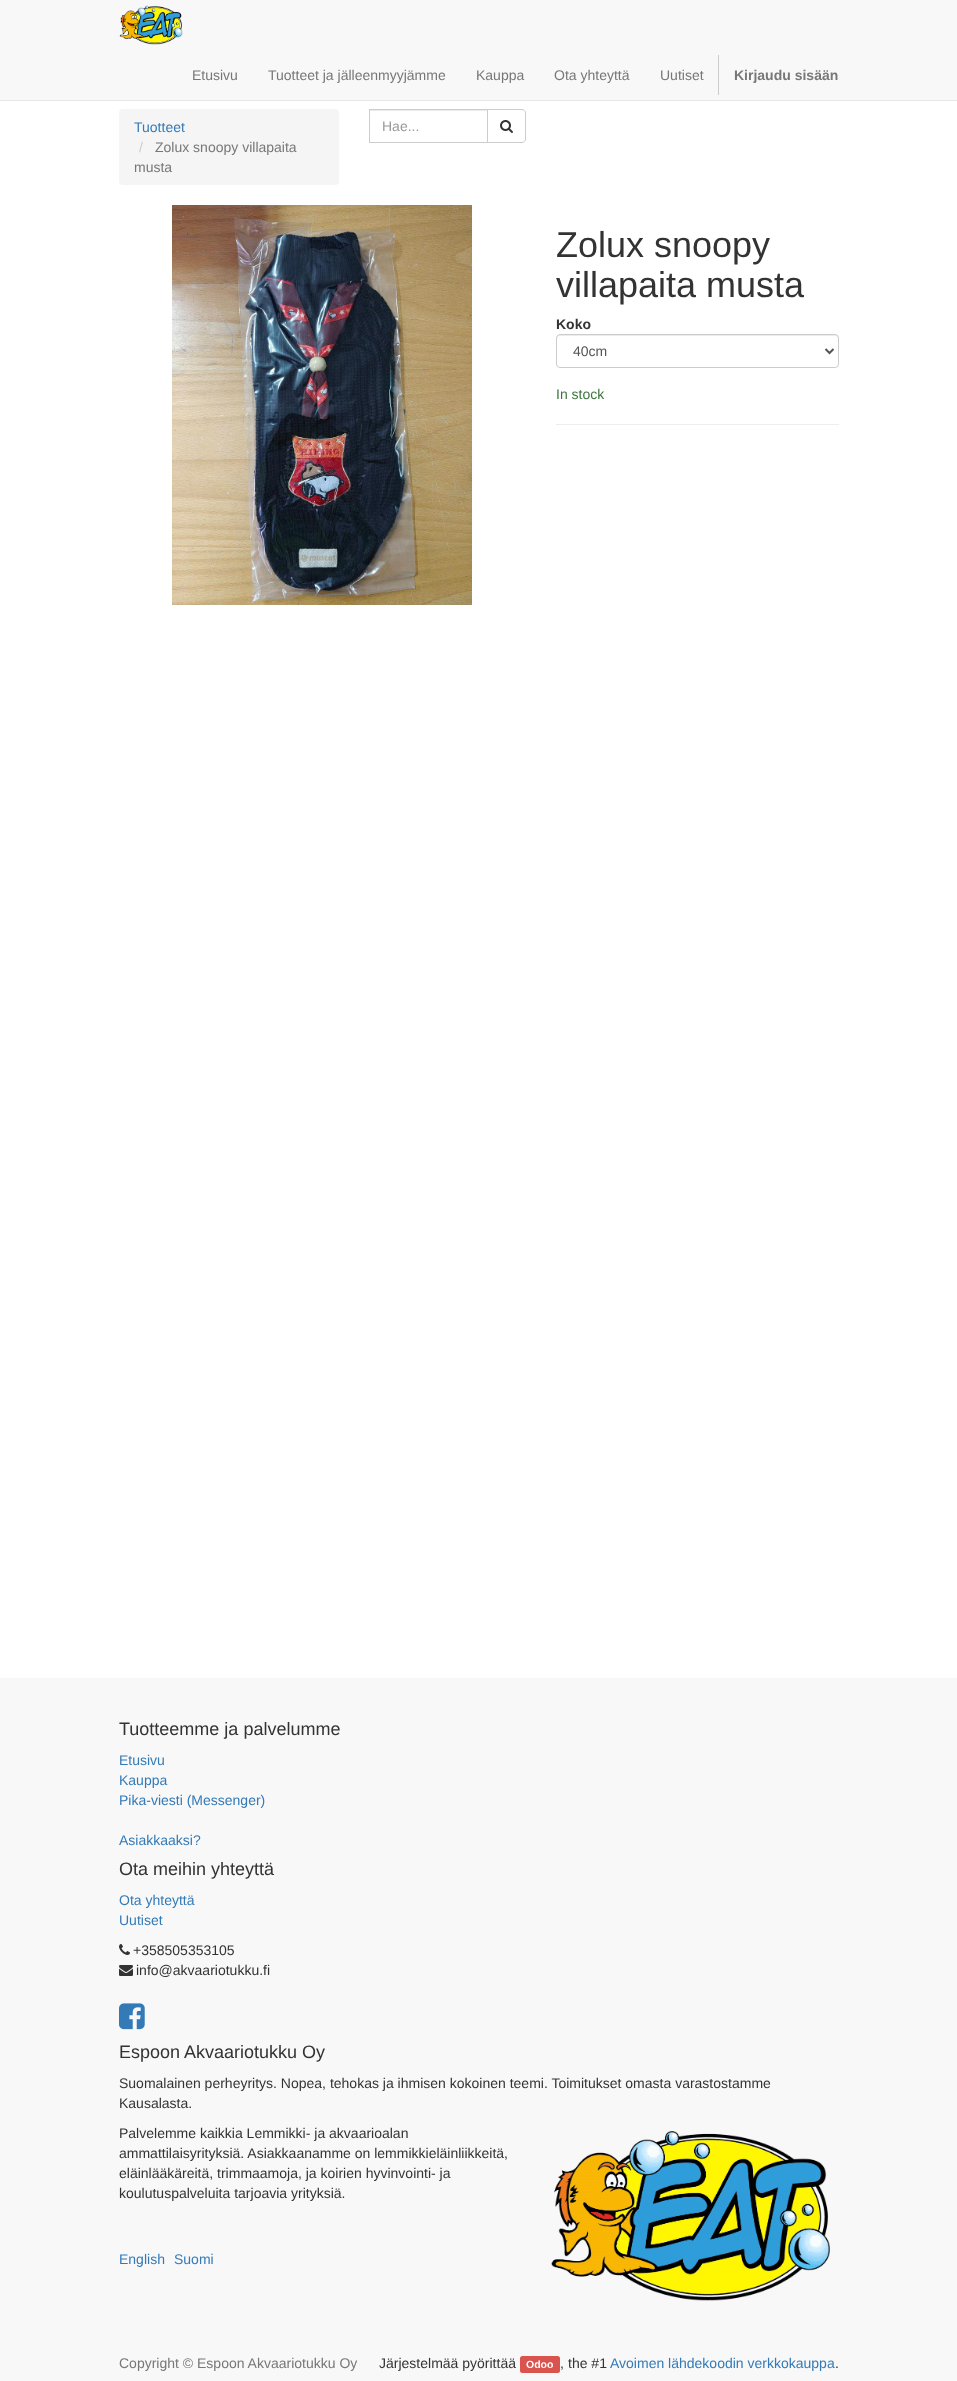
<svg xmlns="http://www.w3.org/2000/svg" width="957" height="2381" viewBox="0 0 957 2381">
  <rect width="100%" height="100%" fill="rgb(255,255,255)"/>
  <rect x="0" y="0" width="957" height="100" fill="rgb(248,248,248)"/>
  <rect x="0" y="100" width="957" height="1" fill="rgb(231,231,231)"/>
  <image x="119" y="5" width="64" height="40" href="pic1.png"/>
  <g font-family="Liberation Sans" font-size="14" fill="rgb(119,119,119)">
    <text x="192" y="80">Etusivu</text>
    <text x="268" y="80">Tuotteet ja jälleenmyyjämme</text>
    <text x="476" y="80">Kauppa</text>
    <text x="554" y="80">Ota yhteyttä</text>
    <text x="660" y="80">Uutiset</text>
  </g>
  <rect x="718" y="55" width="1" height="40" fill="rgb(204,204,204)"/>
  <text x="734" y="80" font-family="Liberation Sans" font-size="14" font-weight="bold" fill="rgb(119,119,119)">Kirjaudu sisään</text>
  <rect x="119" y="109" width="220" height="76" rx="4" fill="rgb(245,245,245)"/>
  <text x="134" y="132" font-family="Liberation Sans" font-size="14" fill="rgb(51,122,183)">Tuotteet</text>
  <text x="139" y="152" font-family="Liberation Sans" font-size="14" fill="rgb(204,204,204)">/</text>
  <g font-family="Liberation Sans" font-size="14" fill="rgb(119,119,119)">
    <text x="155" y="152">Zolux snoopy villapaita</text>
    <text x="134" y="172">musta</text>
  </g>
  <rect x="370" y="110" width="117" height="1" fill="rgb(236,236,236)"/>
  <rect x="369.5" y="109.5" width="118" height="33" fill="none" stroke="rgb(204,204,204)"/>
  <text x="382" y="131" font-family="Liberation Sans" font-size="14" fill="rgb(153,153,153)">Hae...</text>
  <path d="M487.5 109.5H522C524 109.5 525.5 111 525.5 113V139C525.5 141 524 142.5 522 142.5H487.5Z" fill="rgb(255,255,255)" stroke="rgb(204,204,204)"/>
  <image x="500" y="120" width="13" height="13" href="pic2.png"/>
  <image x="172" y="205" width="300" height="400" href="pic3.png"/>
  <g font-family="Liberation Sans" font-size="36" fill="rgb(51,51,51)">
    <text>
      <tspan x="556" y="257">Zolux snoopy</tspan>
      <tspan x="556" y="297">villapaita musta</tspan>
    </text>
  </g>
  <text x="556" y="329" font-family="Liberation Sans" font-size="14" font-weight="bold" fill="rgb(51,51,51)">Koko</text>
  <path d="M560 336H835C837 336 838 337 838 339V338C838 336 837 335 835 335H560C558 335 557 336 557 338V339C557 337 558 336 560 336Z" fill="rgb(236,236,236)"/>
  <rect x="556.5" y="334.5" width="282" height="33" rx="3.5" fill="none" stroke="rgb(204,204,204)"/>
  <path d="M825.5 349L829.5 353L833.5 349" fill="none" stroke="rgb(85,85,85)" stroke-width="2"/>
  <text x="573" y="356" font-family="Liberation Sans" font-size="14" fill="rgb(85,85,85)">40cm</text>
  <text x="556" y="399" font-family="Liberation Sans" font-size="14" fill="rgb(60,118,61)">In stock</text>
  <rect x="556" y="424" width="283" height="1" fill="rgb(238,238,238)"/>
  <rect x="0" y="1678" width="957" height="703" fill="rgb(248,248,248)"/>
  <text x="119" y="1735" font-family="Liberation Sans" font-size="18" fill="rgb(51,51,51)">Tuotteemme ja palvelumme</text>
  <g font-family="Liberation Sans" font-size="14" fill="rgb(51,122,183)">
    <text>
      <tspan x="119" y="1765">Etusivu</tspan>
      <tspan x="119" y="1785">Kauppa</tspan>
      <tspan x="119" y="1805">Pika-viesti (Messenger)</tspan>
    </text>
    <text x="119" y="1845">Asiakkaaksi?</text>
  </g>
  <text x="119" y="1875" font-family="Liberation Sans" font-size="18" fill="rgb(51,51,51)">Ota meihin yhteyttä</text>
  <g font-family="Liberation Sans" font-size="14" fill="rgb(51,122,183)">
    <text>
      <tspan x="119" y="1905">Ota yhteyttä</tspan>
      <tspan x="119" y="1925">Uutiset</tspan>
    </text>
  </g>
  <image x="119" y="1944" width="11" height="11" href="pic4.png"/>
  <text x="133" y="1955" font-family="Liberation Sans" font-size="14" fill="rgb(51,51,51)">+358505353105</text>
  <image x="119" y="1965" width="14" height="11" href="pic5.png"/>
  <text x="136" y="1975" font-family="Liberation Sans" font-size="14" fill="rgb(51,51,51)">info@akvaariotukku.fi</text>
  <image x="119" y="2003" width="26" height="27" href="pic6.png"/>
  <text x="119" y="2058" font-family="Liberation Sans" font-size="18" fill="rgb(51,51,51)">Espoon Akvaariotukku Oy</text>
  <g font-family="Liberation Sans" font-size="14" fill="rgb(51,51,51)">
    <text>
      <tspan x="119" y="2088">Suomalainen perheyritys. Nopea, tehokas ja ihmisen kokoinen teemi. Toimitukset omasta varastostamme</tspan>
      <tspan x="119" y="2108">Kausalasta.</tspan>
    </text>
    <text>
      <tspan x="119" y="2138">Palvelemme kaikkia Lemmikki- ja akvaarioalan</tspan>
      <tspan x="119" y="2158">ammattilaisyrityksiä. Asiakkaanamme on lemmikkieläinliikkeitä,</tspan>
      <tspan x="119" y="2178">eläinlääkäreitä, trimmaamoja, ja koirien hyvinvointi- ja</tspan>
      <tspan x="119" y="2198">koulutuspalveluita tarjoavia yrityksiä.</tspan>
    </text>
  </g>
  <image x="551" y="2131" width="279" height="170" href="pic7.png"/>
  <g font-family="Liberation Sans" font-size="14" fill="rgb(51,122,183)">
    <text x="119" y="2264">English</text>
    <text x="174" y="2264">Suomi</text>
  </g>
  <text x="119" y="2368" font-family="Liberation Sans" font-size="14" fill="rgb(119,119,119)">Copyright © Espoon Akvaariotukku Oy</text>
  <text x="379" y="2368" font-family="Liberation Sans" font-size="14" fill="rgb(51,51,51)">Järjestelmää pyörittää</text>
  <rect x="520" y="2356" width="40" height="17" rx="2.5" fill="rgb(217,83,79)"/>
  <text x="526" y="2368" font-family="Liberation Sans" font-size="10.5" font-weight="bold" fill="rgb(255,255,255)">Odoo</text>
  <g font-family="Liberation Sans" font-size="14" fill="rgb(51,51,51)">
    <text x="560" y="2368">,</text>
    <text x="568" y="2368">the #1</text>
  </g>
  <text x="610" y="2368" font-family="Liberation Sans" font-size="14" fill="rgb(51,122,183)">Avoimen lähdekoodin verkkokauppa</text>
  <text x="835" y="2368" font-family="Liberation Sans" font-size="14" fill="rgb(51,51,51)">.</text>
</svg>
